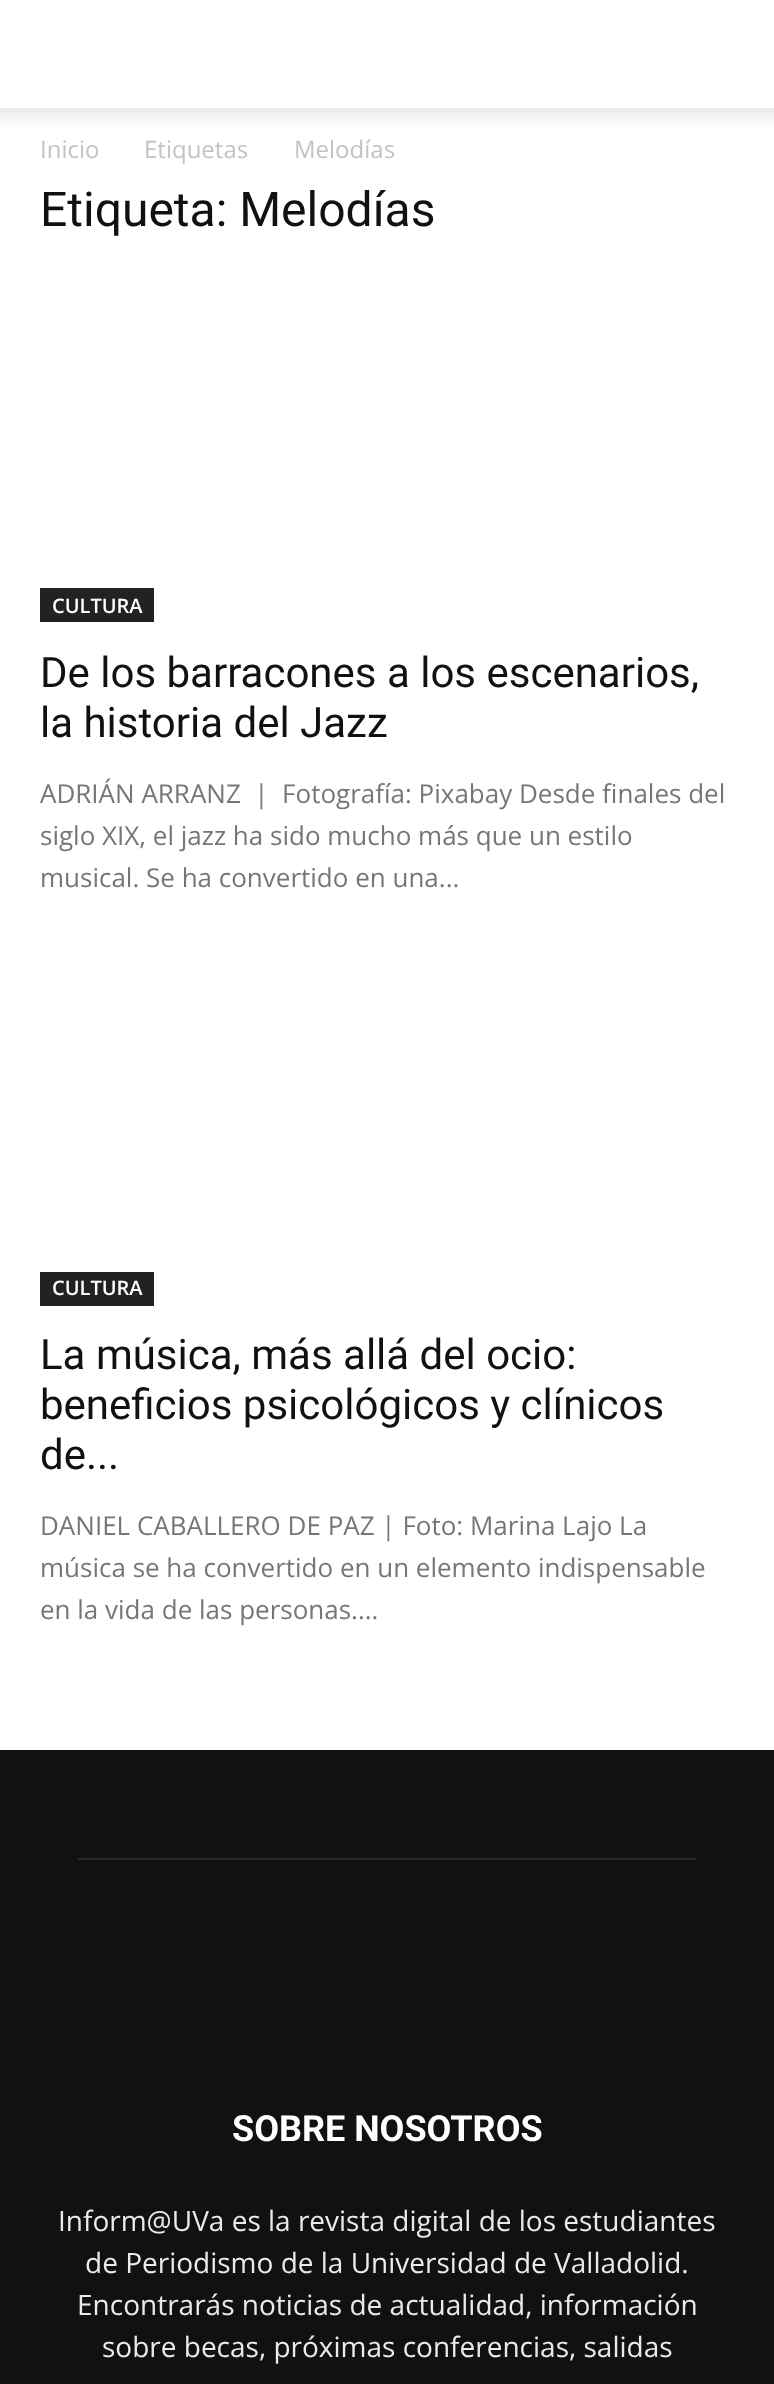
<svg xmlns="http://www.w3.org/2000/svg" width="774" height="2384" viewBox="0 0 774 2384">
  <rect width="100%" height="100%" fill="rgb(255,255,255)"/>
  <image x="0" y="108" width="774" height="17" href="pic1.png"/>
  <g font-family="Open Sans" font-size="24" fill="rgb(195,195,195)">
    <text x="40" y="158">Inicio</text>
    <text x="144" y="158">Etiquetas</text>
    <text x="294" y="158">Melodías</text>
  </g>
  <text x="40" y="226" font-family="Roboto" font-size="48" fill="rgb(17,17,17)">Etiqueta: Melodías</text>
  <rect x="40" y="588" width="114" height="34" fill="rgb(34,34,34)"/>
  <text x="52" y="613" font-family="Open Sans" font-size="20" font-weight="600" fill="rgb(255,255,255)">CULTURA</text>
  <g font-family="Roboto" font-size="42" fill="rgb(17,17,17)">
    <text>
      <tspan x="40" y="687">De los barracones a los escenarios,</tspan>
      <tspan x="40" y="737">la historia del Jazz</tspan>
    </text>
  </g>
  <g font-family="Open Sans" font-size="26" fill="rgb(118,118,118)">
    <text xml:space="preserve"><tspan x="40" y="803">ADRIÁN ARRANZ  |  Fotografía: Pixabay Desde finales del</tspan><tspan x="40" y="845">siglo XIX, el jazz ha sido mucho más que un estilo</tspan><tspan x="40" y="887">musical. Se ha convertido en una...</tspan></text>
  </g>
  <rect x="40" y="1272" width="114" height="34" fill="rgb(34,34,34)"/>
  <text x="52" y="1295" font-family="Open Sans" font-size="20" font-weight="600" fill="rgb(255,255,255)">CULTURA</text>
  <g font-family="Roboto" font-size="42" fill="rgb(17,17,17)">
    <text>
      <tspan x="40" y="1369">La música, más allá del ocio:</tspan>
      <tspan x="40" y="1419">beneficios psicológicos y clínicos</tspan>
      <tspan x="40" y="1469">de...</tspan>
    </text>
  </g>
  <g font-family="Open Sans" font-size="26" fill="rgb(118,118,118)">
    <text>
      <tspan x="40" y="1535">DANIEL CABALLERO DE PAZ | Foto: Marina Lajo La</tspan>
      <tspan x="40" y="1577">música se ha convertido en un elemento indispensable</tspan>
      <tspan x="40" y="1619">en la vida de las personas....</tspan>
    </text>
  </g>
  <rect x="0" y="1750" width="774" height="634" fill="rgb(17,17,17)"/>
  <rect x="78" y="1858" width="618" height="2" fill="rgb(41,41,41)"/>
  <text x="232" y="2141" font-family="Roboto" font-size="36" font-weight="bold" fill="rgb(255,255,255)">SOBRE NOSOTROS</text>
  <g font-family="Open Sans" font-size="28" fill="rgb(234,234,234)">
    <text x="58" y="2231">Inform@UVa es la revista digital de los estudiantes</text>
    <text x="85" y="2273">de Periodismo de la Universidad de Valladolid.</text>
    <text x="77" y="2315">Encontrarás noticias de actualidad, información</text>
    <text x="102" y="2357">sobre becas, próximas conferencias, salidas</text>
  </g>
</svg>
